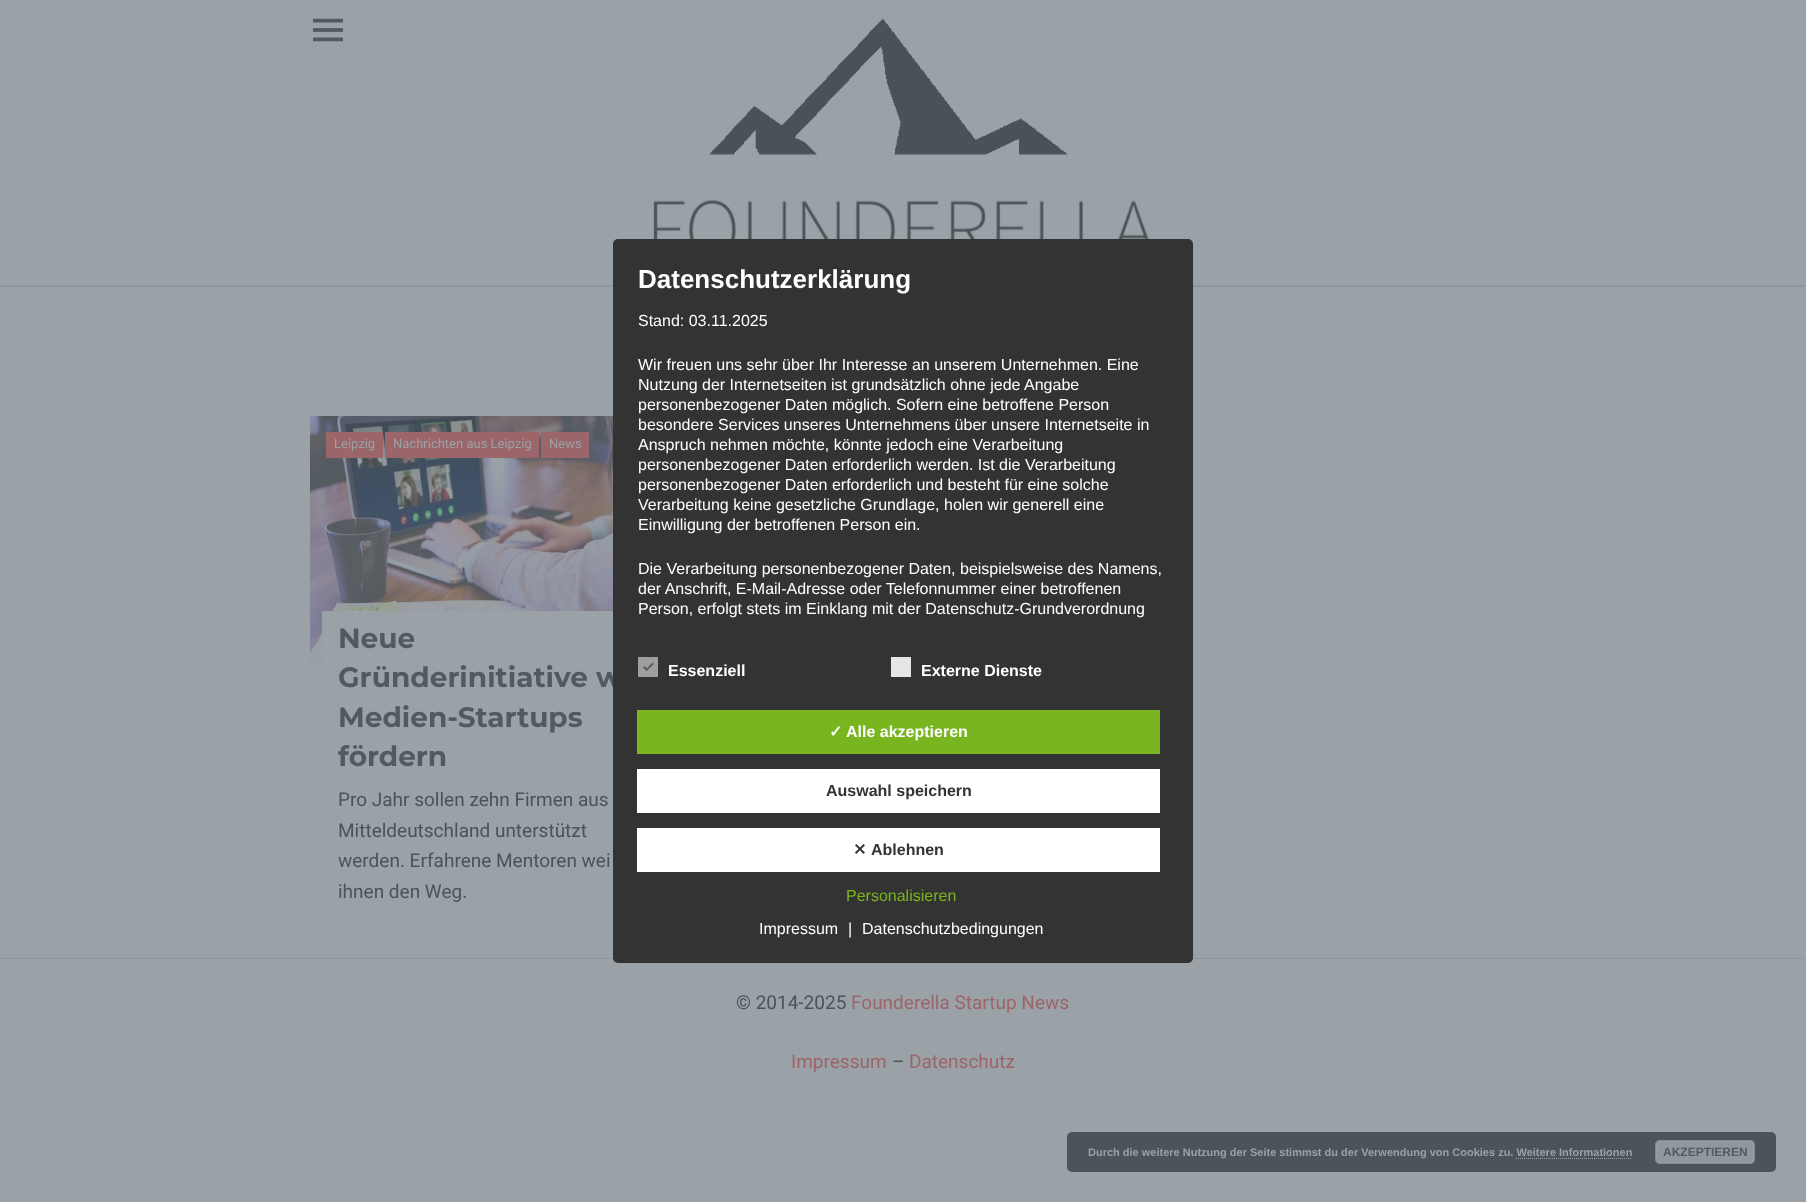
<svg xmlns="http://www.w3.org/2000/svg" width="1806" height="1202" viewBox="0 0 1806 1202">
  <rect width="100%" height="100%" fill="rgb(155,162,167)"/>
  <rect x="0" y="285" width="1806" height="1" fill="rgb(143,151,155)"/>
  <image x="653" y="18" width="702" height="242" href="pic2.png"/>
  <rect x="0" y="286" width="1806" height="1" fill="rgb(142,149,154)"/>
  <text x="338" y="687" font-family="Montserrat" font-size="28" font-weight="bold" fill="rgb(83,90,95)">Gründerinitiative w</text>
  <rect x="0" y="958" width="1806" height="1" fill="rgb(143,151,155)"/>
  <rect x="613" y="239" width="580" height="724" rx="5" fill="rgb(51,51,51)"/>
  <text x="638" y="288" font-family="Liberation Sans" font-size="26" font-weight="bold" fill="rgb(255,255,255)">Datenschutzerklärung</text>
  <g font-family="Liberation Sans" font-size="16" fill="rgb(255,255,255)">
    <text x="638" y="326">Stand: 03.11.2025</text>
    <text>
      <tspan x="638" y="370">Wir freuen uns sehr über Ihr Interesse an unserem Unternehmen. Eine</tspan>
      <tspan x="638" y="390">Nutzung der Internetseiten ist grundsätzlich ohne jede Angabe</tspan>
      <tspan x="638" y="410">personenbezogener Daten möglich. Sofern eine betroffene Person</tspan>
      <tspan x="638" y="430">besondere Services unseres Unternehmens über unsere Internetseite in</tspan>
      <tspan x="638" y="450">Anspruch nehmen möchte, könnte jedoch eine Verarbeitung</tspan>
      <tspan x="638" y="470">personenbezogener Daten erforderlich werden. Ist die Verarbeitung</tspan>
      <tspan x="638" y="490">personenbezogener Daten erforderlich und besteht für eine solche</tspan>
      <tspan x="638" y="510">Verarbeitung keine gesetzliche Grundlage, holen wir generell eine</tspan>
      <tspan x="638" y="530">Einwilligung der betroffenen Person ein.</tspan>
    </text>
    <text>
      <tspan x="638" y="574">Die Verarbeitung personenbezogener Daten, beispielsweise des Namens,</tspan>
      <tspan x="638" y="594">der Anschrift, E-Mail-Adresse oder Telefonnummer einer betroffenen</tspan>
      <tspan x="638" y="614">Person, erfolgt stets im Einklang mit der Datenschutz-Grundverordnung</tspan>
    </text>
  </g>
  <rect x="638" y="657" width="20" height="20" fill="rgb(158,158,158)"/>
  <path d="M652.5 662.5L654 664L646.5 671L645.5 669.5Z" fill="rgb(94,94,94)"/>
  <path d="M644.5 666L648 669.5L646.5 671L643 667.5Z" fill="rgb(94,94,94)"/>
  <text x="668" y="676" font-family="Liberation Sans" font-size="16" font-weight="bold" fill="rgb(255,255,255)">Essenziell</text>
  <rect x="891" y="657" width="20" height="20" fill="rgb(230,230,230)"/>
  <text x="921" y="676" font-family="Liberation Sans" font-size="16" font-weight="bold" fill="rgb(255,255,255)">Externe Dienste</text>
  <rect x="637" y="710" width="523" height="44" fill="rgb(121,181,31)"/>
  <text x="829" y="737" font-family="DejaVu Sans" font-size="16" font-weight="bold" fill="rgb(255,255,255)">✓</text>
  <text x="846" y="737" font-family="Liberation Sans" font-size="16" font-weight="bold" fill="rgb(255,255,255)">Alle akzeptieren</text>
  <rect x="637" y="769" width="523" height="44" fill="rgb(255,255,255)"/>
  <text x="826" y="796" font-family="Liberation Sans" font-size="16" font-weight="bold" fill="rgb(51,51,51)">Auswahl speichern</text>
  <rect x="637" y="828" width="523" height="44" fill="rgb(255,255,255)"/>
  <text x="853" y="855" font-family="DejaVu Sans" font-size="16" font-weight="bold" fill="rgb(51,51,51)">✕</text>
  <text x="871" y="855" font-family="Liberation Sans" font-size="16" font-weight="bold" fill="rgb(51,51,51)">Ablehnen</text>
  <text x="846" y="901" font-family="Liberation Sans" font-size="16" fill="rgb(121,181,31)">Personalisieren</text>
  <g font-family="Liberation Sans" font-size="16" fill="rgb(255,255,255)">
    <text x="759" y="934">Impressum</text>
    <text x="848" y="934">|</text>
    <text x="862" y="934">Datenschutzbedingungen</text>
  </g>
  <image x="313" y="18" width="30" height="24" href="pic1.png"/>
  <image x="310" y="416" width="303" height="248" href="pic3.png"/>
  <rect x="326" y="432" width="57" height="26" fill="rgb(155,101,105)"/>
  <text x="334" y="448" font-family="Roboto" font-size="13" fill="rgb(155,162,167)">Leipzig</text>
  <rect x="385" y="432" width="154" height="26" fill="rgb(155,101,105)"/>
  <text x="393" y="448" font-family="Roboto" font-size="13" fill="rgb(155,162,167)">Nachrichten aus Leipzig</text>
  <rect x="541" y="432" width="48" height="26" fill="rgb(155,101,105)"/>
  <text x="549" y="448" font-family="Roboto" font-size="13" fill="rgb(155,162,167)">News</text>
  <rect x="322" y="611" width="291" height="53" fill="rgb(155,162,167)"/>
  <g font-family="Montserrat" font-size="28" font-weight="bold" fill="rgb(83,90,95)">
    <text x="338" y="648">Neue</text>
    <text>
      <tspan x="338" y="727">Medien-Startups</tspan>
      <tspan x="338" y="766">fördern</tspan>
    </text>
  </g>
  <g font-family="Roboto" font-size="19" fill="rgb(75,83,87)">
    <text>
      <tspan x="338" y="806">Pro Jahr sollen zehn Firmen aus</tspan>
      <tspan x="338" y="837">Mitteldeutschland unterstützt</tspan>
      <tspan x="338" y="867">werden. Erfahrene Mentoren wei</tspan>
      <tspan x="338" y="898">ihnen den Weg.</tspan>
    </text>
    <text x="736" y="1009">© 2014-2025</text>
  </g>
  <g font-family="Roboto" font-size="19" fill="rgb(155,101,105)">
    <text x="851" y="1009">Founderella Startup News</text>
    <text x="791" y="1068">Impressum</text>
  </g>
  <text x="892" y="1068" font-family="Roboto" font-size="19" fill="rgb(75,83,87)">–</text>
  <text x="909" y="1068" font-family="Roboto" font-size="19" fill="rgb(155,101,105)">Datenschutz</text>
  <rect x="1067" y="1132" width="709" height="40" rx="5" fill="rgb(76,84,89)"/>
  <text x="1088" y="1156" font-family="Liberation Sans" font-size="11" font-weight="bold" fill="rgb(155,162,167)">Durch die weitere Nutzung der Seite stimmst du der Verwendung von Cookies zu. Weitere Informationen</text>
  <rect x="1655" y="1140" width="100" height="24" rx="5" fill="rgb(144,152,157)"/>
  <rect x="1656.5" y="1141.5" width="97" height="21" rx="3.5" fill="none" stroke="rgb(151,159,163)"/>
  <rect x="1655.5" y="1140.5" width="99" height="23" rx="4.5" fill="none" stroke="rgb(130,138,142)"/>
  <text x="1663" y="1156" font-family="Liberation Sans" font-size="12" font-weight="bold" fill="rgb(83,90,95)">AKZEPTIEREN</text>
  <path d="M1516 1158.5H1632" fill="none" stroke="rgb(155,162,167)" stroke-dasharray="1 1"/>
</svg>
